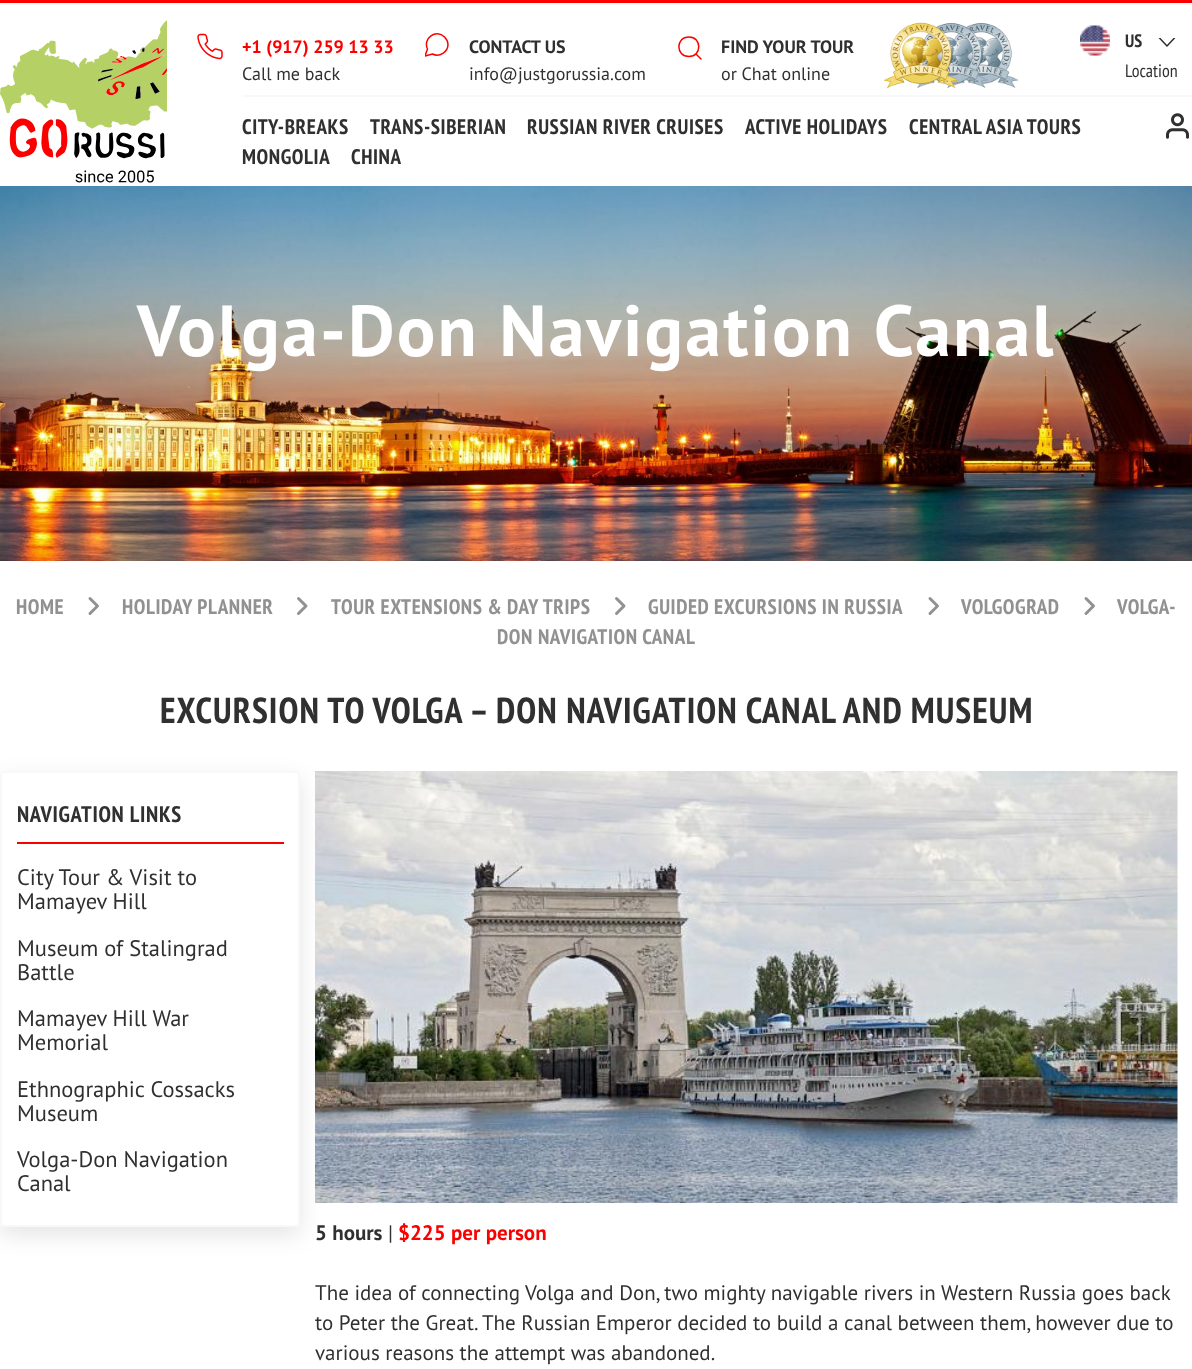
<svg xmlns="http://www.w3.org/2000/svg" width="1192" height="1369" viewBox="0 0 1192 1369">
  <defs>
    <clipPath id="clip1"><rect x="425" y="33" width="24" height="24"/></clipPath>
    <clipPath id="clip2"><rect x="1158" y="38" width="18" height="9"/></clipPath>
    <clipPath id="clip3"><path d="M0 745H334V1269H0ZM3 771H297C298.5 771 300 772.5 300 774V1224C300 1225.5 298.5 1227 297 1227H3C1.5 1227 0 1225.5 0 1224V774C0 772.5 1.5 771 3 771Z" clip-rule="evenodd"/></clipPath>
  </defs>
  <rect width="100%" height="100%" fill="rgb(255,255,255)"/>
  <rect x="0" y="0" width="1192" height="3" fill="rgb(252,0,0)"/>
  <image x="0" y="20" width="167" height="163" href="pic1.png"/>
  <image x="197" y="33" width="26" height="27" href="pic2.png"/>
  <text x="242" y="53" font-family="PT Sans" font-size="18" font-weight="bold" fill="rgb(252,0,0)">+1 (917) 259 13 33</text>
  <text x="242" y="80" font-family="PT Sans" font-size="18" fill="rgb(48,48,48)">Call me back</text>
  <g clip-path="url(#clip1)">
    <path d="M448 44.5C448 52 439.5 57.5 432.5 54L425 56L427.5 49C422.5 38.5 436 28.5 444.5 37C446.5 39 448 41.5 448 44.5Z" fill="none" stroke="rgb(252,0,0)" stroke-width="1.5" stroke-linecap="round" stroke-linejoin="round"/>
  </g>
  <text x="469" y="53" font-family="PT Sans" font-size="18" font-weight="bold" fill="rgb(48,48,48)">CONTACT US</text>
  <text x="469" y="80" font-family="PT Sans" font-size="18" fill="rgb(48,48,48)">info@justgorussia.com</text>
  <path d="M689 56.5C702 56.5 702 37 689 37C675.5 37 675.5 56.5 689 56.5ZM701 59L696 54" fill="none" stroke="rgb(252,0,0)" stroke-width="1.5" stroke-linecap="round" stroke-linejoin="round"/>
  <text x="721" y="53" font-family="PT Sans" font-size="18" font-weight="bold" fill="rgb(48,48,48)">FIND YOUR TOUR</text>
  <text x="721" y="80" font-family="PT Sans" font-size="18" fill="rgb(48,48,48)">or Chat online</text>
  <image x="947" y="22" width="72" height="67" href="pic5.png"/>
  <image x="917" y="22" width="71" height="67" href="pic4.png"/>
  <image x="883" y="22" width="76" height="67" href="pic3.png"/>
  <g clip-path="url(#clip2)">
    <path d="M1159.5 38L1167 46L1174.5 38" fill="none" stroke="rgb(48,48,48)" stroke-width="1.5" stroke-linecap="round" stroke-linejoin="round"/>
  </g>
  <image x="1080" y="25" width="30" height="31" href="pic6.png"/>
  <text x="1125" y="47" font-family="PT Sans Narrow" font-size="18" font-weight="bold" fill="rgb(48,48,48)">US</text>
  <text x="1125" y="77" font-family="PT Sans Narrow" font-size="18" fill="rgb(48,48,48)">Location</text>
  <rect x="242" y="95" width="950" height="2" fill="rgb(248,248,248)"/>
  <g font-family="PT Sans Narrow" font-size="21" font-weight="bold" letter-spacing="0.6" fill="rgb(48,48,48)">
    <text x="242" y="134">CITY-BREAKS</text>
    <text x="370" y="134">TRANS-SIBERIAN</text>
    <text x="527" y="134">RUSSIAN RIVER CRUISES</text>
    <text x="745" y="134">ACTIVE HOLIDAYS</text>
    <text x="909" y="134">CENTRAL ASIA TOURS</text>
  </g>
  <image x="1166" y="113" width="23" height="26" href="pic7.png"/>
  <g font-family="PT Sans Narrow" font-size="21" font-weight="bold" letter-spacing="0.6" fill="rgb(48,48,48)">
    <text x="242" y="164">MONGOLIA</text>
    <text x="351" y="164">CHINA</text>
  </g>
  <image x="0" y="186" width="1192" height="375" href="pic8.png"/>
  <text x="137" y="356" font-family="PT Sans" font-size="72" font-weight="bold" letter-spacing="2.15" fill="rgb(255,255,255)">Volga-Don Navigation Canal</text>
  <text x="16" y="614" font-family="PT Sans Narrow" font-size="21" font-weight="bold" letter-spacing="0.6" fill="rgb(145,145,145)">HOME</text>
  <path d="M90 613.5L97.5 606L90 598.5" fill="none" stroke="rgb(145,145,145)" stroke-width="3" stroke-linecap="round" stroke-linejoin="round"/>
  <text x="122" y="614" font-family="PT Sans Narrow" font-size="21" font-weight="bold" letter-spacing="0.6" fill="rgb(145,145,145)">HOLIDAY PLANNER</text>
  <path d="M298.5 613.5L306 606L298.5 598.5" fill="none" stroke="rgb(145,145,145)" stroke-width="3" stroke-linecap="round" stroke-linejoin="round"/>
  <text x="331" y="614" font-family="PT Sans Narrow" font-size="21" font-weight="bold" letter-spacing="0.6" fill="rgb(145,145,145)">TOUR EXTENSIONS &amp; DAY TRIPS</text>
  <path d="M616.5 613.5L624 606L616.5 598.5" fill="none" stroke="rgb(145,145,145)" stroke-width="3" stroke-linecap="round" stroke-linejoin="round"/>
  <text x="648" y="614" font-family="PT Sans Narrow" font-size="21" font-weight="bold" letter-spacing="0.6" fill="rgb(145,145,145)">GUIDED EXCURSIONS IN RUSSIA</text>
  <path d="M930 613.5L937.5 606L930 598.5" fill="none" stroke="rgb(145,145,145)" stroke-width="3" stroke-linecap="round" stroke-linejoin="round"/>
  <text x="961" y="614" font-family="PT Sans Narrow" font-size="21" font-weight="bold" letter-spacing="0.6" fill="rgb(145,145,145)">VOLGOGRAD</text>
  <path d="M1086 613.5L1093.5 606L1086 598.5" fill="none" stroke="rgb(145,145,145)" stroke-width="3" stroke-linecap="round" stroke-linejoin="round"/>
  <g font-family="PT Sans Narrow" font-size="21" font-weight="bold" letter-spacing="0.6" fill="rgb(145,145,145)">
    <text x="1117" y="614">VOLGA-</text>
    <text x="497" y="644">DON NAVIGATION CANAL</text>
  </g>
  <text x="160" y="723" font-family="PT Sans Narrow" font-size="36" font-weight="bold" letter-spacing="1.08" fill="rgb(48,48,48)">EXCURSION TO VOLGA – DON NAVIGATION CANAL AND MUSEUM</text>
  <g clip-path="url(#clip3)">
    <rect x="0" y="779" width="300" height="456" rx="3" fill="rgba(0,0,0,0.1)" filter="blur(11px)"/>
  </g>
  <rect x="1" y="772" width="298" height="454" rx="2" fill="none" stroke="rgb(248,248,248)" stroke-width="2"/>
  <rect x="17" y="842" width="267" height="2" fill="rgb(252,0,0)"/>
  <text x="17" y="822" font-family="PT Sans Narrow" font-size="22.5" font-weight="bold" letter-spacing="0.7" fill="rgb(48,48,48)">NAVIGATION LINKS</text>
  <g font-family="PT Sans" font-size="22.5" fill="rgb(48,48,48)">
    <text>
      <tspan x="17" y="885">City Tour &amp; Visit to</tspan>
      <tspan x="17" y="909">Mamayev Hill</tspan>
    </text>
    <text>
      <tspan x="17" y="956">Museum of Stalingrad</tspan>
      <tspan x="17" y="980">Battle</tspan>
    </text>
    <text>
      <tspan x="17" y="1026">Mamayev Hill War</tspan>
      <tspan x="17" y="1050">Memorial</tspan>
    </text>
    <text>
      <tspan x="17" y="1097">Ethnographic Cossacks</tspan>
      <tspan x="17" y="1121">Museum</tspan>
    </text>
    <text>
      <tspan x="17" y="1167">Volga-Don Navigation</tspan>
      <tspan x="17" y="1191">Canal</tspan>
    </text>
  </g>
  <image x="315" y="771" width="863" height="432" href="pic9.png"/>
  <text x="315" y="1240" font-family="PT Sans" font-size="21" font-weight="bold" fill="rgb(48,48,48)">5 hours</text>
  <text x="388" y="1240" font-family="PT Sans" font-size="21" fill="rgb(48,48,48)">|</text>
  <text x="398" y="1240" font-family="PT Sans" font-size="21" font-weight="bold" fill="rgb(252,0,0)">$225 per person</text>
  <g font-family="PT Sans" font-size="21" fill="rgb(48,48,48)">
    <text>
      <tspan x="315" y="1300">The idea of connecting Volga and Don, two mighty navigable rivers in Western Russia goes back</tspan>
      <tspan x="315" y="1330">to Peter the Great. The Russian Emperor decided to build a canal between them, however due to</tspan>
      <tspan x="315" y="1360">various reasons the attempt was abandoned.</tspan>
    </text>
  </g>
</svg>
